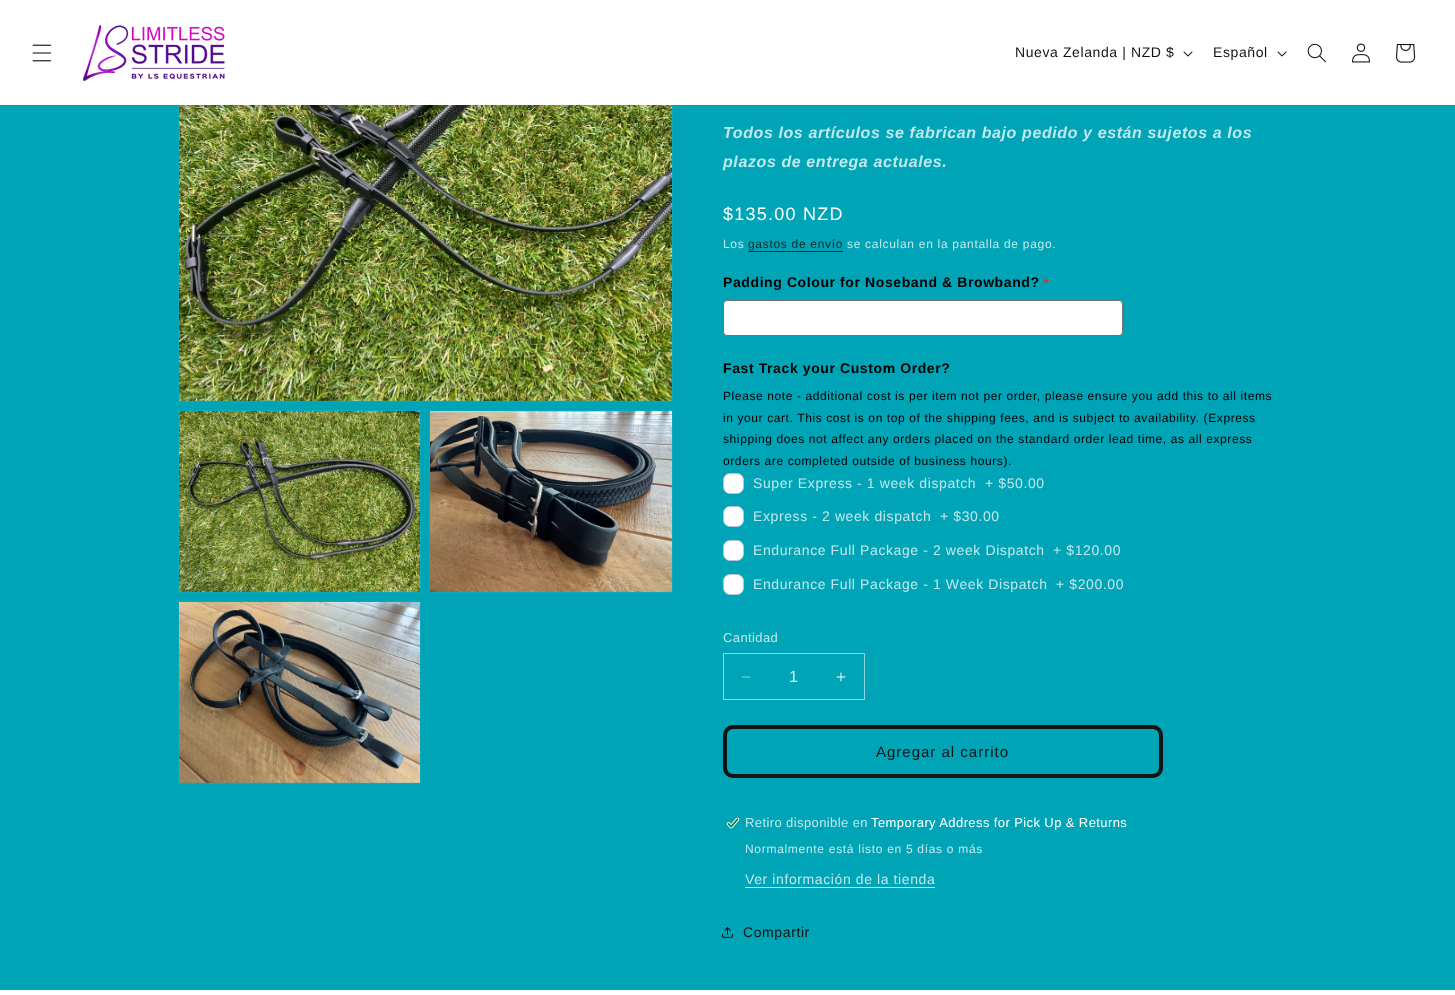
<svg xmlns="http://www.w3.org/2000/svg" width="1455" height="995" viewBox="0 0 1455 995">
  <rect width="100%" height="100%" fill="rgb(0,164,183)"/>
  <rect x="178.5" y="30.5" width="494" height="371" fill="none" stroke="rgb(13,169,187)"/>
  <rect x="0" y="0" width="1455" height="105" fill="rgb(255,255,255)"/>
  <image x="32" y="44" width="20" height="18" href="pic1.png"/>
  <image x="82" y="25" width="143" height="56" href="pic2.png"/>
  <text x="1015" y="57" font-family="Liberation Sans" font-size="14" letter-spacing="0.6" fill="rgb(18,18,18)">Nueva Zelanda | NZD $</text>
  <image x="1183" y="51" width="10" height="6" href="pic3.png"/>
  <text x="1213" y="57" font-family="Liberation Sans" font-size="14" letter-spacing="0.6" fill="rgb(18,18,18)">Español</text>
  <image x="1277" y="51" width="10" height="6" href="pic3.png"/>
  <image x="1307" y="43" width="19" height="20" href="pic4.png"/>
  <image x="1352" y="43" width="18" height="20" href="pic5.png"/>
  <image x="1396" y="44" width="20" height="19" href="pic6.png"/>
  <image x="179" y="105" width="493" height="296" href="pic7.png"/>
  <rect x="178.5" y="410.5" width="242" height="182" fill="none" stroke="rgb(13,169,187)"/>
  <image x="179" y="411" width="241" height="181" href="pic8.png"/>
  <rect x="429.5" y="410.5" width="243" height="182" fill="none" stroke="rgb(13,169,187)"/>
  <image x="430" y="411" width="242" height="181" href="pic9.png"/>
  <rect x="178.5" y="601.5" width="242" height="182" fill="none" stroke="rgb(13,169,187)"/>
  <image x="179" y="602" width="241" height="181" href="pic10.png"/>
  <g font-family="Liberation Sans" font-size="16" font-weight="bold" font-style="italic" letter-spacing="0.6" fill="rgb(191,232,237)">
    <text>
      <tspan x="723" y="138">Todos los artículos se fabrican bajo pedido y están sujetos a los</tspan>
      <tspan x="723" y="167">plazos de entrega actuales.</tspan>
    </text>
  </g>
  <text x="723" y="220" font-family="Liberation Sans" font-size="18" letter-spacing="1.25" fill="rgb(255,255,255)">$135.00 NZD</text>
  <text x="723" y="248" font-family="Liberation Sans" font-size="12" letter-spacing="0.7" fill="rgb(191,232,237)">Los</text>
  <text x="748" y="248" font-family="Liberation Sans" font-size="12" letter-spacing="0.7" fill="rgb(15,40,43)">gastos de envío</text>
  <rect x="748" y="251" width="95" height="1" fill="rgb(15,40,43)"/>
  <text x="847" y="248" font-family="Liberation Sans" font-size="12" letter-spacing="0.7" fill="rgb(191,232,237)">se calculan en la pantalla de pago.</text>
  <text x="723" y="287" font-family="Liberation Sans" font-size="14" font-weight="bold" letter-spacing="0.6" fill="rgb(0,0,0)">Padding Colour for Noseband &amp; Browband?</text>
  <text x="1044" y="287" font-family="Liberation Sans" font-size="12" font-weight="bold" letter-spacing="0.6" fill="rgb(224,43,39)">*</text>
  <rect x="723.5" y="300.5" width="399" height="35" rx="3.5" fill="rgb(255,255,255)" stroke="rgb(113,113,113)"/>
  <text x="723" y="373" font-family="Liberation Sans" font-size="14" font-weight="bold" letter-spacing="0.6" fill="rgb(0,0,0)">Fast Track your Custom Order?</text>
  <g font-family="Liberation Sans" font-size="12" letter-spacing="0.6" fill="rgb(0,0,0)">
    <text>
      <tspan x="723" y="400">Please note - additional cost is per item not per order, please ensure you add this to all items</tspan>
      <tspan x="723" y="422">in your cart. This cost is on top of the shipping fees, and is subject to availability. (Express</tspan>
      <tspan x="723" y="443">shipping does not affect any orders placed on the standard order lead time, as all express</tspan>
      <tspan x="723" y="465">orders are completed outside of business hours).</tspan>
    </text>
  </g>
  <rect x="723.5" y="473.5" width="20" height="20" rx="6.5" fill="rgb(255,255,255)" stroke="rgb(187,193,225)"/>
  <g font-family="Liberation Sans" font-size="14" letter-spacing="0.6" fill="rgb(191,232,237)">
    <text x="753" y="488">Super Express - 1 week dispatch</text>
    <text x="985" y="488">+ $50.00</text>
  </g>
  <rect x="723.5" y="506.5" width="20" height="20" rx="6.5" fill="rgb(255,255,255)" stroke="rgb(187,193,225)"/>
  <g font-family="Liberation Sans" font-size="14" letter-spacing="0.6" fill="rgb(191,232,237)">
    <text x="753" y="521">Express - 2 week dispatch</text>
    <text x="940" y="521">+ $30.00</text>
  </g>
  <rect x="723.5" y="540.5" width="20" height="20" rx="6.5" fill="rgb(255,255,255)" stroke="rgb(187,193,225)"/>
  <g font-family="Liberation Sans" font-size="14" letter-spacing="0.6" fill="rgb(191,232,237)">
    <text x="753" y="555">Endurance Full Package - 2 week Dispatch</text>
    <text x="1053" y="555">+ $120.00</text>
  </g>
  <rect x="723.5" y="574.5" width="20" height="20" rx="6.5" fill="rgb(255,255,255)" stroke="rgb(187,193,225)"/>
  <g font-family="Liberation Sans" font-size="14" letter-spacing="0.6" fill="rgb(191,232,237)">
    <text x="753" y="589">Endurance Full Package - 1 Week Dispatch</text>
    <text x="1056" y="589">+ $200.00</text>
  </g>
  <text x="723" y="642" font-family="Liberation Sans" font-size="13" letter-spacing="0.4" fill="rgb(191,232,237)">Cantidad</text>
  <image x="741" y="676" width="10" height="2" href="pic11.png"/>
  <image x="836" y="672" width="10" height="10" href="pic12.png"/>
  <rect x="723.5" y="653.5" width="141" height="46" fill="none" stroke="rgb(140,214,223)"/>
  <text x="789" y="682" font-family="Liberation Sans" font-size="16" fill="rgb(217,241,244)">1</text>
  <rect x="725" y="727" width="436" height="49" rx="8" fill="none" stroke="rgb(18,18,18)" stroke-width="4"/>
  <text x="876" y="757" font-family="Liberation Sans" font-size="15" letter-spacing="1" fill="rgb(18,18,18)">Agregar al carrito</text>
  <image x="726" y="817" width="14" height="12" href="pic13.png"/>
  <text x="745" y="827" font-family="Liberation Sans" font-size="13" letter-spacing="0.4" fill="rgb(191,232,237)">Retiro disponible en</text>
  <text x="871" y="827" font-family="Liberation Sans" font-size="13" letter-spacing="0.4" fill="rgb(255,255,255)">Temporary Address for Pick Up &amp; Returns</text>
  <text x="745" y="853" font-family="Liberation Sans" font-size="12" letter-spacing="0.7" fill="rgb(191,232,237)">Normalmente está listo en 5 días o más</text>
  <text x="745" y="884" font-family="Liberation Sans" font-size="14" letter-spacing="0.6" fill="rgb(191,232,237)">Ver información de la tienda</text>
  <rect x="745" y="887" width="190" height="1" fill="rgb(191,232,237)"/>
  <image x="722" y="927" width="11" height="11" href="pic14.png"/>
  <text x="743" y="937" font-family="Liberation Sans" font-size="14" letter-spacing="0.6" fill="rgb(18,18,18)">Compartir</text>
  <rect x="0" y="990" width="1455" height="5" fill="rgb(255,255,255)"/>
</svg>
